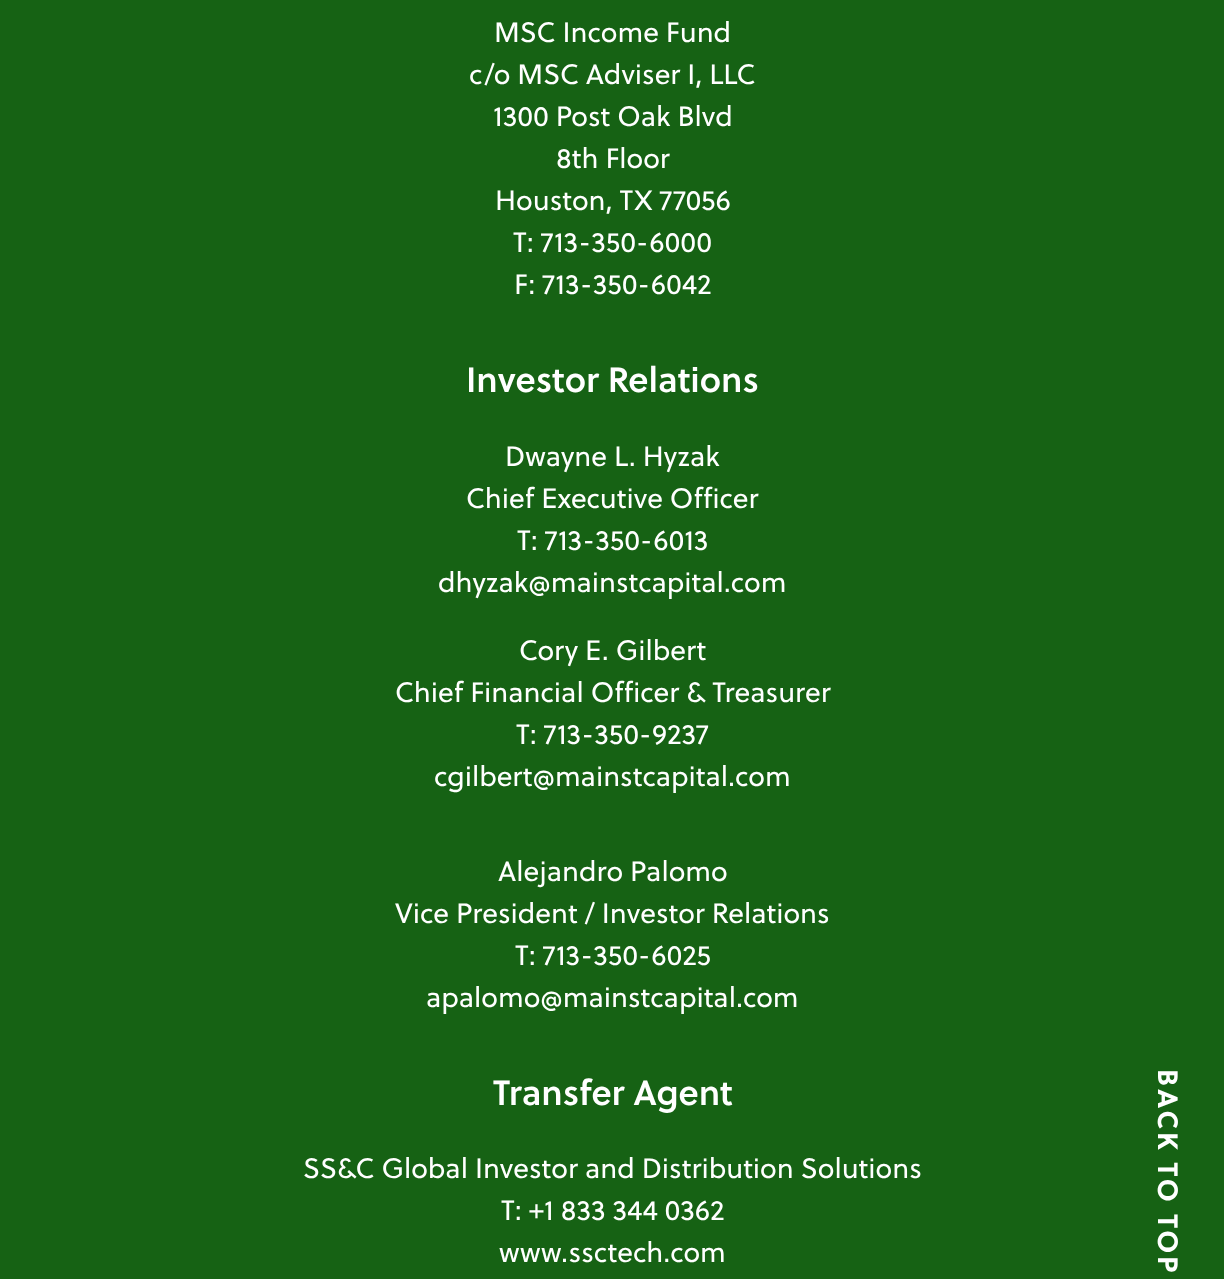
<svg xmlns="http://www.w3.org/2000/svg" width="1224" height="1279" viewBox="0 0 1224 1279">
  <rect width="100%" height="100%" fill="rgb(22,98,20)"/>
  <g font-family="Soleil" font-size="28" fill="rgb(255,255,255)">
    <text x="494" y="42">MSC Income Fund</text>
    <text x="469" y="84">c/o MSC Adviser I, LLC</text>
    <text x="493" y="126">1300 Post Oak Blvd</text>
    <text x="556" y="168">8th Floor</text>
    <text x="495" y="210">Houston, TX 77056</text>
    <text x="513" y="252">T: 713-350-6000</text>
    <text x="514" y="294">F: 713-350-6042</text>
  </g>
  <text x="466" y="392" font-family="Soleil" font-size="35" font-weight="600" fill="rgb(255,255,255)">Investor Relations</text>
  <g font-family="Soleil" font-size="28" fill="rgb(255,255,255)">
    <text x="505" y="466">Dwayne L. Hyzak</text>
    <text x="466" y="508">Chief Executive Officer</text>
    <text x="517" y="550">T: 713-350-6013</text>
    <text x="438" y="592">dhyzak@mainstcapital.com</text>
    <text x="519" y="660">Cory E. Gilbert</text>
    <text x="395" y="702">Chief Financial Officer &amp; Treasurer</text>
    <text x="516" y="744">T: 713-350-9237</text>
    <text x="434" y="786">cgilbert@mainstcapital.com</text>
    <text x="498" y="881">Alejandro Palomo</text>
    <text x="395" y="923">Vice President / Investor Relations</text>
    <text x="515" y="965">T: 713-350-6025</text>
    <text x="426" y="1007">apalomo@mainstcapital.com</text>
  </g>
  <text x="493" y="1105" font-family="Soleil" font-size="35" font-weight="600" fill="rgb(255,255,255)">Transfer Agent</text>
  <g font-family="Soleil" font-size="28" fill="rgb(255,255,255)">
    <text x="303" y="1178">SS&amp;C Global Investor and Distribution Solutions</text>
    <text x="501" y="1220">T: +1 833 344 0362</text>
    <text x="499" y="1262">www.ssctech.com</text>
  </g>
  <text x="1158" y="1069" transform="rotate(90 1158 1069)" font-family="Soleil" font-size="28" font-weight="bold" letter-spacing="2.75" fill="rgb(255,255,255)">BACK TO TOP</text>
</svg>
